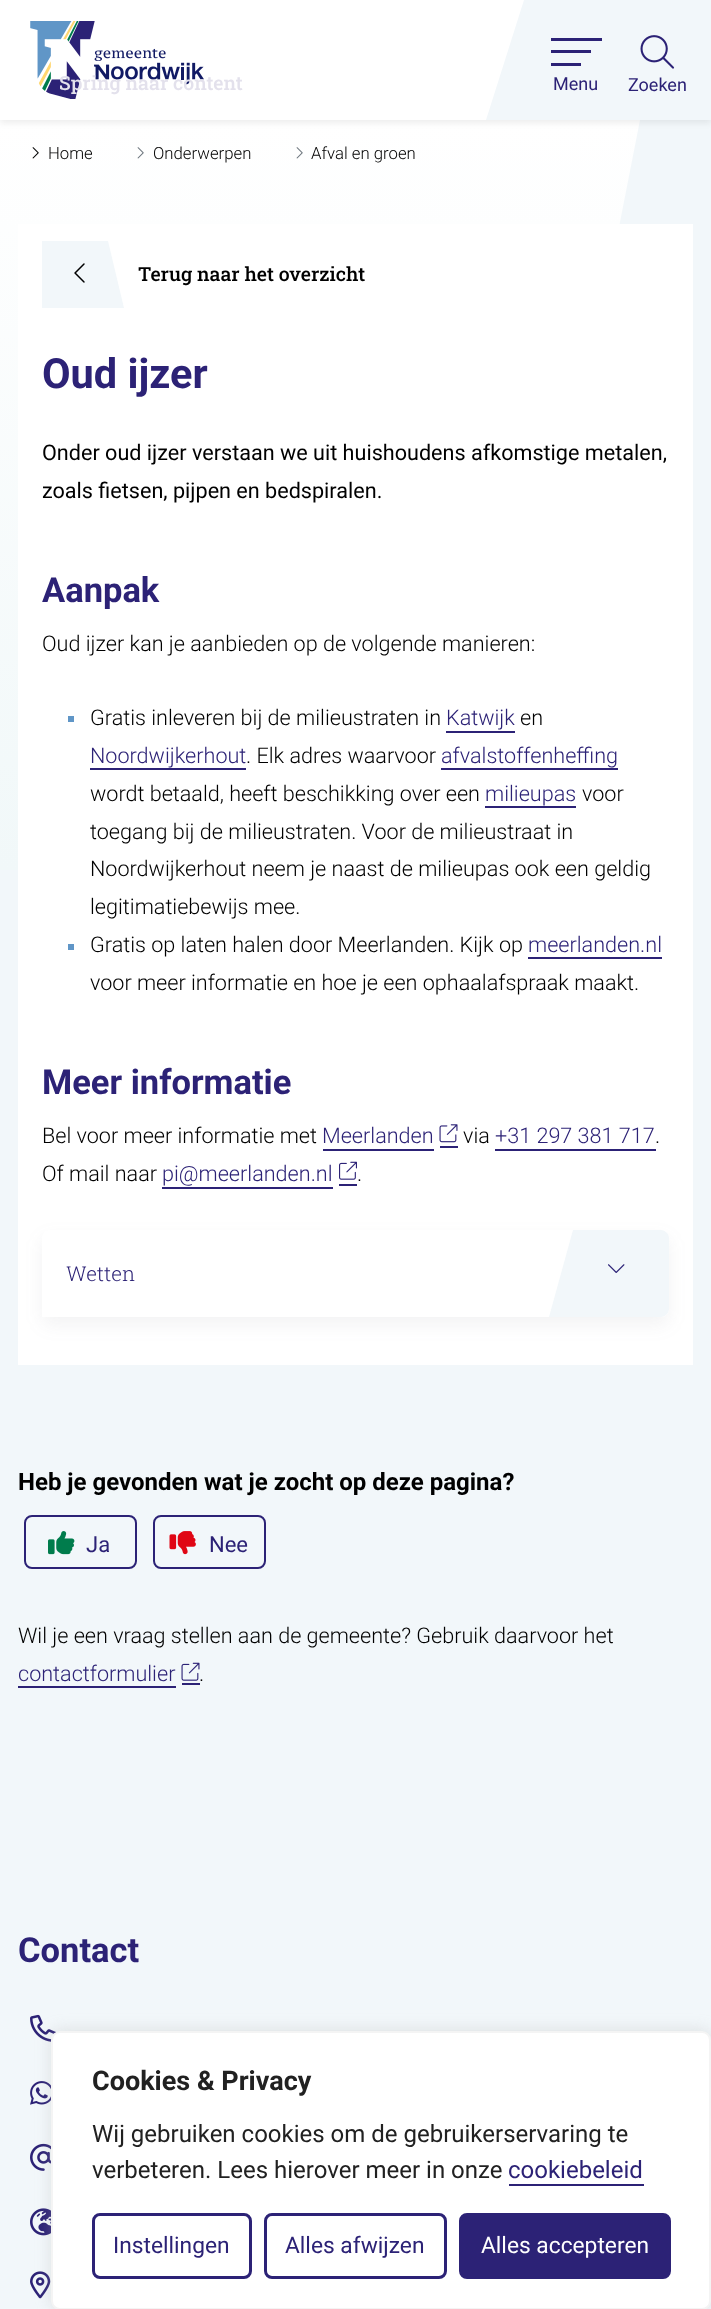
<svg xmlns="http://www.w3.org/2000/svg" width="711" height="2309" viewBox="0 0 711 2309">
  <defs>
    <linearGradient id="g1" gradientUnits="userSpaceOnUse" x1="320" y1="870" x2="320" y2="120"><stop offset="0" stop-color="rgb(241,248,249)"/><stop offset="1" stop-color="rgb(255,255,255)"/></linearGradient>
  </defs>
  <rect width="100%" height="100%" fill="rgb(242,247,250)"/>
  <path d="M0 120V870H493L640 120Z" fill="url(#g1)"/>
  <rect x="0" y="3" width="711" height="120" fill="rgba(0,0,0,0.07)" filter="blur(3px)"/>
  <rect x="0" y="0" width="524" height="120" fill="rgb(255,255,255)"/>
  <image x="30" y="21" width="174" height="78" href="pic1.png"/>
  <text x="59" y="90" font-family="Roboto Slab" font-size="19.5" font-weight="500" fill="rgb(227,225,236)">Spring naar content</text>
  <path d="M524 0L486 120H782V0Z" fill="rgb(242,247,250)"/>
  <rect x="551" y="38" width="51" height="3" fill="rgb(44,34,118)"/>
  <rect x="551" y="50" width="40" height="3" fill="rgb(44,34,118)"/>
  <rect x="551" y="63" width="30" height="3" fill="rgb(44,34,118)"/>
  <text x="553" y="90" font-family="Roboto" font-size="18" fill="rgb(44,34,118)">Menu</text>
  <image x="640" y="35" width="35" height="34" href="pic2.png"/>
  <text x="628" y="91" font-family="Roboto" font-size="18" fill="rgb(44,34,118)">Zoeken</text>
  <image x="32" y="147" width="7" height="12" href="pic3.png"/>
  <text x="48" y="159" font-family="Roboto" font-size="16.75" font-weight="300" fill="rgb(0,0,0)">Home</text>
  <image x="137" y="147" width="7" height="12" href="pic4.png"/>
  <text x="153" y="159" font-family="Roboto" font-size="16.75" font-weight="300" fill="rgb(0,0,0)">Onderwerpen</text>
  <image x="296" y="147" width="7" height="12" href="pic4.png"/>
  <text x="311" y="159" font-family="Roboto" font-size="16.75" font-weight="300" fill="rgb(0,0,0)">Afval en groen</text>
  <rect x="18" y="224" width="675" height="1141" fill="rgb(255,255,255)"/>
  <path d="M42 241V308H124L108 241Z" fill="rgb(242,247,250)"/>
  <image x="74" y="263" width="11" height="20" href="pic5.png"/>
  <text x="138" y="281" font-family="Roboto Slab" font-size="19.5" font-weight="500" fill="rgb(0,0,0)">Terug naar het overzicht</text>
  <text x="42" y="388" font-family="Roboto" font-size="41.5" font-weight="bold" fill="rgb(44,34,118)">Oud ijzer</text>
  <g font-family="Roboto" font-size="21.6" fill="rgb(0,0,0)">
    <text>
      <tspan x="42" y="460">Onder oud ijzer verstaan we uit huishoudens afkomstige metalen,</tspan>
      <tspan x="42" y="498">zoals fietsen, pijpen en bedspiralen.</tspan>
    </text>
  </g>
  <text x="42" y="602" font-family="Roboto" font-size="34.5" font-weight="bold" fill="rgb(44,34,118)">Aanpak</text>
  <text x="42" y="651" font-family="Roboto" font-size="21.6" font-weight="300" fill="rgb(0,0,0)">Oud ijzer kan je aanbieden op de volgende manieren:</text>
  <rect x="68" y="716" width="6" height="6" fill="rgb(96,150,199)"/>
  <text x="90" y="725" font-family="Roboto" font-size="21.6" font-weight="300" fill="rgb(0,0,0)">Gratis inleveren bij de milieustraten in</text>
  <text x="446" y="725" font-family="Roboto" font-size="21.6" font-weight="300" fill="rgb(44,34,118)">Katwijk</text>
  <rect x="446" y="731" width="69" height="2" fill="rgb(44,34,118)"/>
  <text x="520" y="725" font-family="Roboto" font-size="21.6" font-weight="300" fill="rgb(0,0,0)">en</text>
  <text x="90" y="763" font-family="Roboto" font-size="21.6" font-weight="300" fill="rgb(44,34,118)">Noordwijkerhout</text>
  <rect x="90" y="768" width="156" height="2" fill="rgb(44,34,118)"/>
  <text x="246" y="763" font-family="Roboto" font-size="21.6" font-weight="300" fill="rgb(0,0,0)">. Elk adres waarvoor</text>
  <text x="441" y="763" font-family="Roboto" font-size="21.6" font-weight="300" fill="rgb(44,34,118)">afvalstoffenheffing</text>
  <rect x="441" y="768" width="177" height="2" fill="rgb(44,34,118)"/>
  <text x="90" y="801" font-family="Roboto" font-size="21.6" font-weight="300" fill="rgb(0,0,0)">wordt betaald, heeft beschikking over een</text>
  <text x="485" y="801" font-family="Roboto" font-size="21.6" font-weight="300" fill="rgb(44,34,118)">milieupas</text>
  <rect x="485" y="806" width="91" height="2" fill="rgb(44,34,118)"/>
  <g font-family="Roboto" font-size="21.6" font-weight="300" fill="rgb(0,0,0)">
    <text x="582" y="801">voor</text>
    <text>
      <tspan x="90" y="839">toegang bij de milieustraten. Voor de milieustraat in</tspan>
      <tspan x="90" y="876">Noordwijkerhout neem je naast de milieupas ook een geldig</tspan>
      <tspan x="90" y="914">legitimatiebewijs mee.</tspan>
    </text>
  </g>
  <rect x="68" y="944" width="6" height="6" fill="rgb(96,150,199)"/>
  <text x="90" y="952" font-family="Roboto" font-size="21.6" font-weight="300" fill="rgb(0,0,0)">Gratis op laten halen door Meerlanden. Kijk op</text>
  <text x="528" y="952" font-family="Roboto" font-size="21.6" font-weight="300" fill="rgb(44,34,118)">meerlanden.nl</text>
  <rect x="528" y="957" width="134" height="2" fill="rgb(44,34,118)"/>
  <text x="90" y="990" font-family="Roboto" font-size="21.6" font-weight="300" fill="rgb(0,0,0)">voor meer informatie en hoe je een ophaalafspraak maakt.</text>
  <text x="42" y="1094" font-family="Roboto" font-size="34.5" font-weight="bold" fill="rgb(44,34,118)">Meer informatie</text>
  <text x="42" y="1143" font-family="Roboto" font-size="21.6" font-weight="300" fill="rgb(0,0,0)">Bel voor meer informatie met</text>
  <text x="322" y="1143" font-family="Roboto" font-size="21.6" font-weight="300" fill="rgb(44,34,118)">Meerlanden</text>
  <rect x="323" y="1149" width="111" height="2" fill="rgb(44,34,118)"/>
  <rect x="440" y="1146" width="18" height="2" fill="rgb(44,34,118)"/>
  <image x="439" y="1124" width="19" height="19" href="pic6.png"/>
  <text x="463" y="1143" font-family="Roboto" font-size="21.6" font-weight="300" fill="rgb(0,0,0)">via</text>
  <text x="495" y="1143" font-family="Roboto" font-size="21.6" font-weight="300" fill="rgb(44,34,118)">+31 297 381 717</text>
  <rect x="495" y="1149" width="161" height="2" fill="rgb(44,34,118)"/>
  <g font-family="Roboto" font-size="21.6" font-weight="300" fill="rgb(0,0,0)">
    <text x="655" y="1143">.</text>
    <text x="42" y="1181">Of mail naar</text>
  </g>
  <text x="162" y="1181" font-family="Roboto" font-size="21.6" font-weight="300" fill="rgb(44,34,118)">pi@meerlanden.nl</text>
  <rect x="162" y="1187" width="171" height="2" fill="rgb(44,34,118)"/>
  <rect x="339" y="1184" width="18" height="2" fill="rgb(44,34,118)"/>
  <image x="339" y="1161" width="18" height="19" href="pic7.png"/>
  <text x="357" y="1181" font-family="Roboto" font-size="21.6" font-weight="300" fill="rgb(0,0,0)">.</text>
  <rect x="42" y="1238" width="627" height="87" rx="8" fill="rgba(99,99,110,0.08)" filter="blur(9px)"/>
  <path d="M50 1230H661C665.5 1230 669 1233.5 669 1238V1309C669 1313.5 665.5 1317 661 1317H42V1238C42 1233.5 45.5 1230 50 1230Z" fill="rgb(255,255,255)"/>
  <path d="M549 1317L573 1230H661C665 1230 669 1234 669 1238V1309C669 1313 665 1317 661 1317Z" fill="rgb(242,247,250)"/>
  <text x="66" y="1281" font-family="Roboto Slab" font-size="20.5" font-weight="300" fill="rgb(44,34,118)">Wetten</text>
  <image x="608" y="1264" width="17" height="9" href="pic8.png"/>
  <text x="18" y="1490" font-family="Roboto" font-size="24" font-weight="bold" fill="rgb(0,0,0)">Heb je gevonden wat je zocht op deze pagina?</text>
  <rect x="25" y="1516" width="111" height="52" rx="7" fill="none" stroke="rgb(44,34,118)" stroke-width="2"/>
  <image x="48" y="1531" width="27" height="24" href="pic9.png"/>
  <text x="86" y="1552" font-family="Roboto" font-size="22" fill="rgb(44,34,118)">Ja</text>
  <rect x="154" y="1516" width="111" height="52" rx="7" fill="none" stroke="rgb(44,34,118)" stroke-width="2"/>
  <image x="169" y="1531" width="27" height="24" href="pic10.png"/>
  <text x="209" y="1552" font-family="Roboto" font-size="22" fill="rgb(44,34,118)">Nee</text>
  <text x="18" y="1643" font-family="Roboto" font-size="21.6" font-weight="300" fill="rgb(0,0,0)">Wil je een vraag stellen aan de gemeente? Gebruik daarvoor het</text>
  <text x="18" y="1681" font-family="Roboto" font-size="21.6" font-weight="300" fill="rgb(44,34,118)">contactformulier</text>
  <rect x="18" y="1686" width="158" height="2" fill="rgb(44,34,118)"/>
  <rect x="182" y="1683" width="18" height="2" fill="rgb(44,34,118)"/>
  <image x="181" y="1662" width="19" height="19" href="pic11.png"/>
  <text x="199" y="1681" font-family="Roboto" font-size="21.6" font-weight="300" fill="rgb(0,0,0)">.</text>
  <text x="18" y="1962" font-family="Roboto" font-size="34.5" font-weight="bold" fill="rgb(44,34,118)">Contact</text>
  <image x="30" y="2014" width="26" height="28" href="pic12.png"/>
  <image x="30" y="2081" width="21" height="24" href="pic13.png"/>
  <image x="30" y="2143" width="21" height="28" href="pic14.png"/>
  <image x="30" y="2208" width="21" height="28" href="pic15.png"/>
  <image x="30" y="2271" width="21" height="28" href="pic16.png"/>
  <rect x="51" y="2030" width="660" height="279" rx="9" fill="rgba(172,171,171,0.3)" filter="blur(7.5px)"/>
  <rect x="52" y="2032" width="658" height="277" rx="8" fill="rgb(255,255,255)" stroke="rgb(244,244,244)" stroke-width="2"/>
  <text x="92" y="2090" font-family="Roboto" font-size="27" font-weight="bold" fill="rgb(33,33,33)">Cookies &amp; Privacy</text>
  <g font-family="Roboto" font-size="24" fill="rgb(33,33,33)">
    <text>
      <tspan x="92" y="2142">Wij gebruiken cookies om de gebruikerservaring te</tspan>
      <tspan x="92" y="2178">verbeteren. Lees hierover meer in onze</tspan>
    </text>
  </g>
  <text x="508" y="2178" font-family="Roboto" font-size="24" fill="rgb(44,34,118)">cookiebeleid</text>
  <rect x="509" y="2184" width="135" height="2" fill="rgb(44,34,118)"/>
  <rect x="93.5" y="2214.5" width="157" height="63" rx="6.5" fill="none" stroke="rgb(44,34,118)" stroke-width="3"/>
  <text x="113" y="2253" font-family="Roboto" font-size="22.75" fill="rgb(44,34,118)">Instellingen</text>
  <rect x="265.5" y="2214.5" width="180" height="63" rx="6.5" fill="none" stroke="rgb(44,34,118)" stroke-width="3"/>
  <text x="285" y="2253" font-family="Roboto" font-size="22.75" fill="rgb(44,34,118)">Alles afwijzen</text>
  <rect x="460.5" y="2214.5" width="209" height="63" rx="6.5" fill="rgb(44,34,118)" stroke="rgb(44,34,118)" stroke-width="3"/>
  <text x="481" y="2253" font-family="Roboto" font-size="22.75" fill="rgb(255,255,255)">Alles accepteren</text>
</svg>
